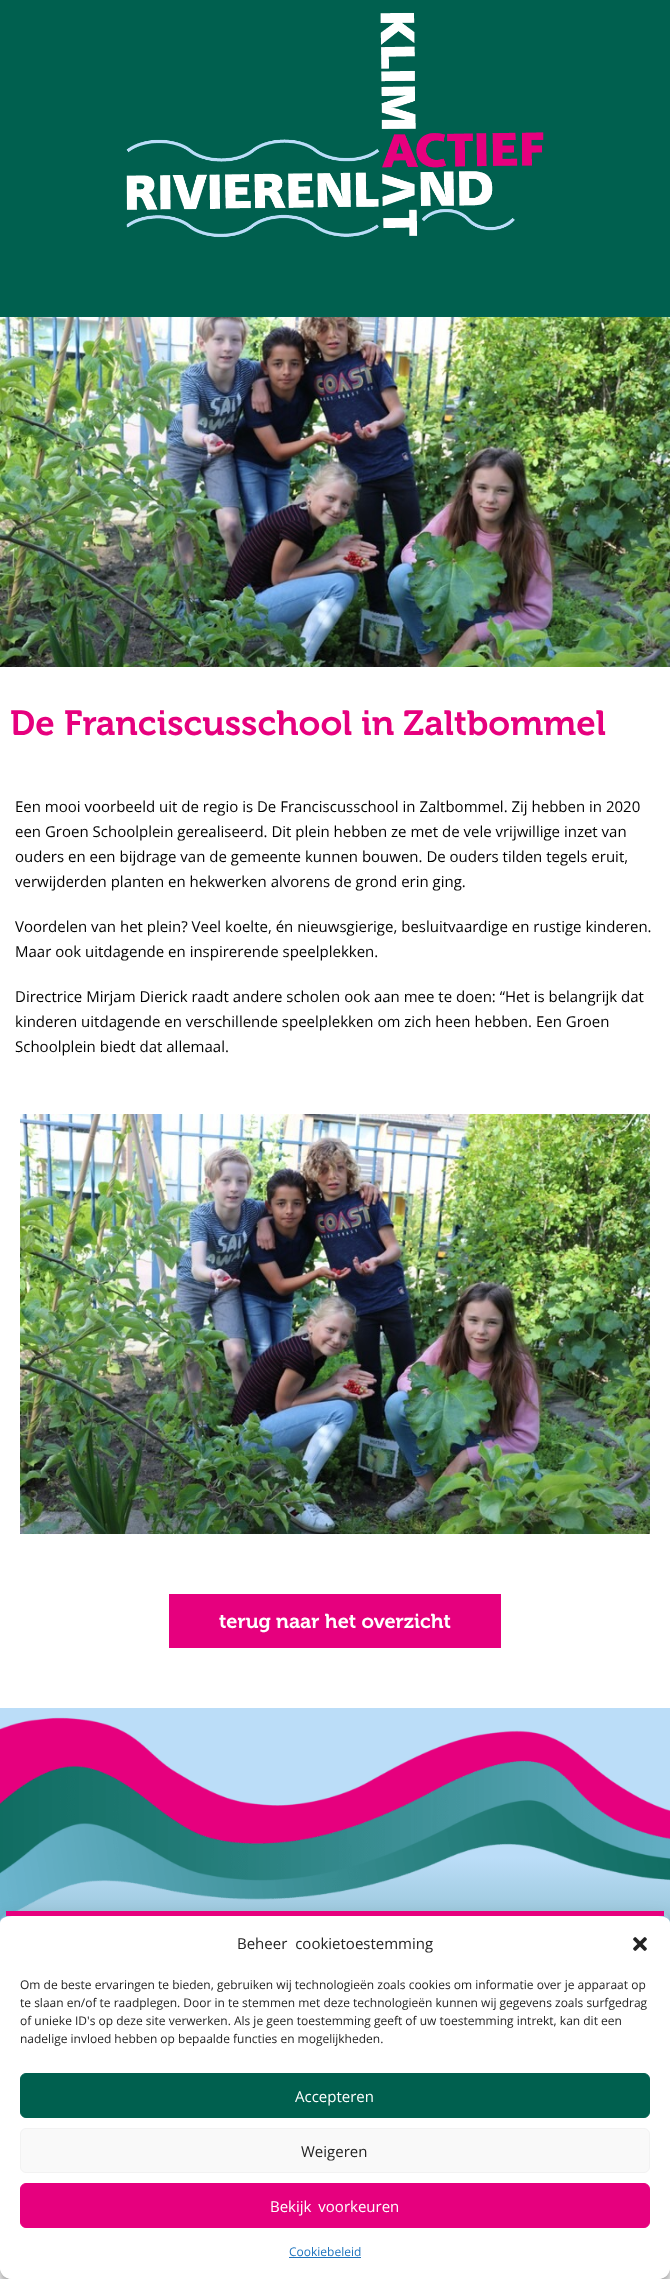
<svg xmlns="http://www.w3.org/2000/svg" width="670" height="2279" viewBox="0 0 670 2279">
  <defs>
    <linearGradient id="g1" gradientUnits="userSpaceOnUse" x1="335" y1="1858" x2="335" y2="2205"><stop offset="0" stop-color="rgb(187,221,248)"/><stop offset="1" stop-color="rgb(0,96,79)"/></linearGradient>
    <clipPath id="clip1"><path d="M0 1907H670V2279H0ZM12 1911H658C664.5 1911 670 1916.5 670 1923V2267C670 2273.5 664.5 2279 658 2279H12C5.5 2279 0 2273.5 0 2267V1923C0 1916.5 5.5 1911 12 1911Z" clip-rule="evenodd"/></clipPath>
    <clipPath id="clip2"><path d="M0 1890H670V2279H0ZM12 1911H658C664.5 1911 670 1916.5 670 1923V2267C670 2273.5 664.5 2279 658 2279H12C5.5 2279 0 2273.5 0 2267V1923C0 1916.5 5.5 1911 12 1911Z" clip-rule="evenodd"/></clipPath>
  </defs>
  <rect width="100%" height="100%" fill="rgb(255,255,255)"/>
  <rect x="0" y="0" width="670" height="317" fill="rgb(0,96,79)"/>
  <image x="126" y="12" width="418" height="226" href="pic1.png"/>
  <image x="0" y="317" width="670" height="350" href="pic2.png"/>
  <text x="10" y="735" font-family="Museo" font-size="35" font-weight="600" fill="rgb(230,0,126)">De Franciscusschool in Zaltbommel</text>
  <g font-family="Open Sans" font-size="15" fill="rgb(0,0,0)">
    <text>
      <tspan x="15" y="812">Een mooi voorbeeld uit de regio is De Franciscusschool in Zaltbommel. Zij hebben in 2020</tspan>
      <tspan x="15" y="837">een Groen Schoolplein gerealiseerd. Dit plein hebben ze met de vele vrijwillige inzet van</tspan>
      <tspan x="15" y="862">ouders en een bijdrage van de gemeente kunnen bouwen. De ouders tilden tegels eruit,</tspan>
      <tspan x="15" y="887">verwijderden planten en hekwerken alvorens de grond erin ging.</tspan>
    </text>
    <text>
      <tspan x="15" y="932">Voordelen van het plein? Veel koelte, én nieuwsgierige, besluitvaardige en rustige kinderen.</tspan>
      <tspan x="15" y="957">Maar ook uitdagende en inspirerende speelplekken.</tspan>
    </text>
    <text>
      <tspan x="15" y="1002">Directrice Mirjam Dierick raadt andere scholen ook aan mee te doen: “Het is belangrijk dat</tspan>
      <tspan x="15" y="1027">kinderen uitdagende en verschillende speelplekken om zich heen hebben. Een Groen</tspan>
      <tspan x="15" y="1052">Schoolplein biedt dat allemaal.</tspan>
    </text>
  </g>
  <image x="20" y="1114" width="630" height="420" href="pic3.png"/>
  <rect x="169" y="1594" width="332" height="54" fill="rgb(230,0,126)"/>
  <text x="219" y="1628" font-family="Museo" font-size="20" font-weight="600" fill="rgb(255,255,255)">terug naar het overzicht</text>
  <rect x="0" y="1708" width="670" height="150" fill="rgb(187,221,248)"/>
  <rect x="0" y="1858" width="670" height="65" fill="url(#g1)"/>
  <image x="0" y="1717" width="670" height="203" href="pic4.png"/>
  <g clip-path="url(#clip1)">
    <rect x="0" y="1917" width="670" height="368" rx="12" fill="rgba(0,0,0,0.23)" filter="blur(3px)"/>
  </g>
  <g clip-path="url(#clip2)">
    <rect x="0" y="1921" width="670" height="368" rx="12" fill="rgba(0,0,0,0.19)" filter="blur(10px)"/>
  </g>
  <path d="M12 1916H658C665 1916 670 1919 670 1923V2267C670 2274 665 2279 658 2279H12C5 2279 0 2274 0 2267V1923C0 1919 5 1916 12 1916Z" fill="rgb(255,255,255)"/>
  <rect x="6" y="1911" width="658" height="5" fill="rgb(230,0,126)"/>
  <text x="237" y="1949" word-spacing="4" font-family="Open Sans" font-size="15" fill="rgb(34,34,34)">Beheer cookietoestemming</text>
  <image x="633" y="1937" width="14" height="14" href="pic5.png"/>
  <g font-family="Open Sans" font-size="12" fill="rgb(34,34,34)">
    <text>
      <tspan x="20" y="1989">Om de beste ervaringen te bieden, gebruiken wij technologieën zoals cookies om informatie over je apparaat op</tspan>
      <tspan x="20" y="2007">te slaan en/of te raadplegen. Door in te stemmen met deze technologieën kunnen wij gegevens zoals surfgedrag</tspan>
      <tspan x="20" y="2025">of unieke ID's op deze site verwerken. Als je geen toestemming geeft of uw toestemming intrekt, kan dit een</tspan>
      <tspan x="20" y="2043">nadelige invloed hebben op bepaalde functies en mogelijkheden.</tspan>
    </text>
  </g>
  <rect x="20.5" y="2073.5" width="629" height="44" rx="5.5" fill="rgb(0,96,79)" stroke="rgb(0,96,79)"/>
  <text x="295" y="2102" font-family="Open Sans" font-size="15" fill="rgb(255,255,255)">Accepteren</text>
  <rect x="20.5" y="2128.5" width="629" height="44" rx="5.5" fill="rgb(249,249,249)" stroke="rgb(242,242,242)"/>
  <text x="301" y="2157" font-family="Open Sans" font-size="15" fill="rgb(34,34,34)">Weigeren</text>
  <rect x="20.5" y="2183.5" width="629" height="44" rx="5.5" fill="rgb(230,0,126)" stroke="rgb(230,0,126)"/>
  <text x="270" y="2212" word-spacing="3" font-family="Open Sans" font-size="15" fill="rgb(255,255,255)">Bekijk voorkeuren</text>
  <text x="289" y="2256" font-family="Open Sans" font-size="12" fill="rgb(30,115,190)">Cookiebeleid</text>
  <rect x="289" y="2257" width="72" height="1" fill="rgb(30,115,190)"/>
</svg>
